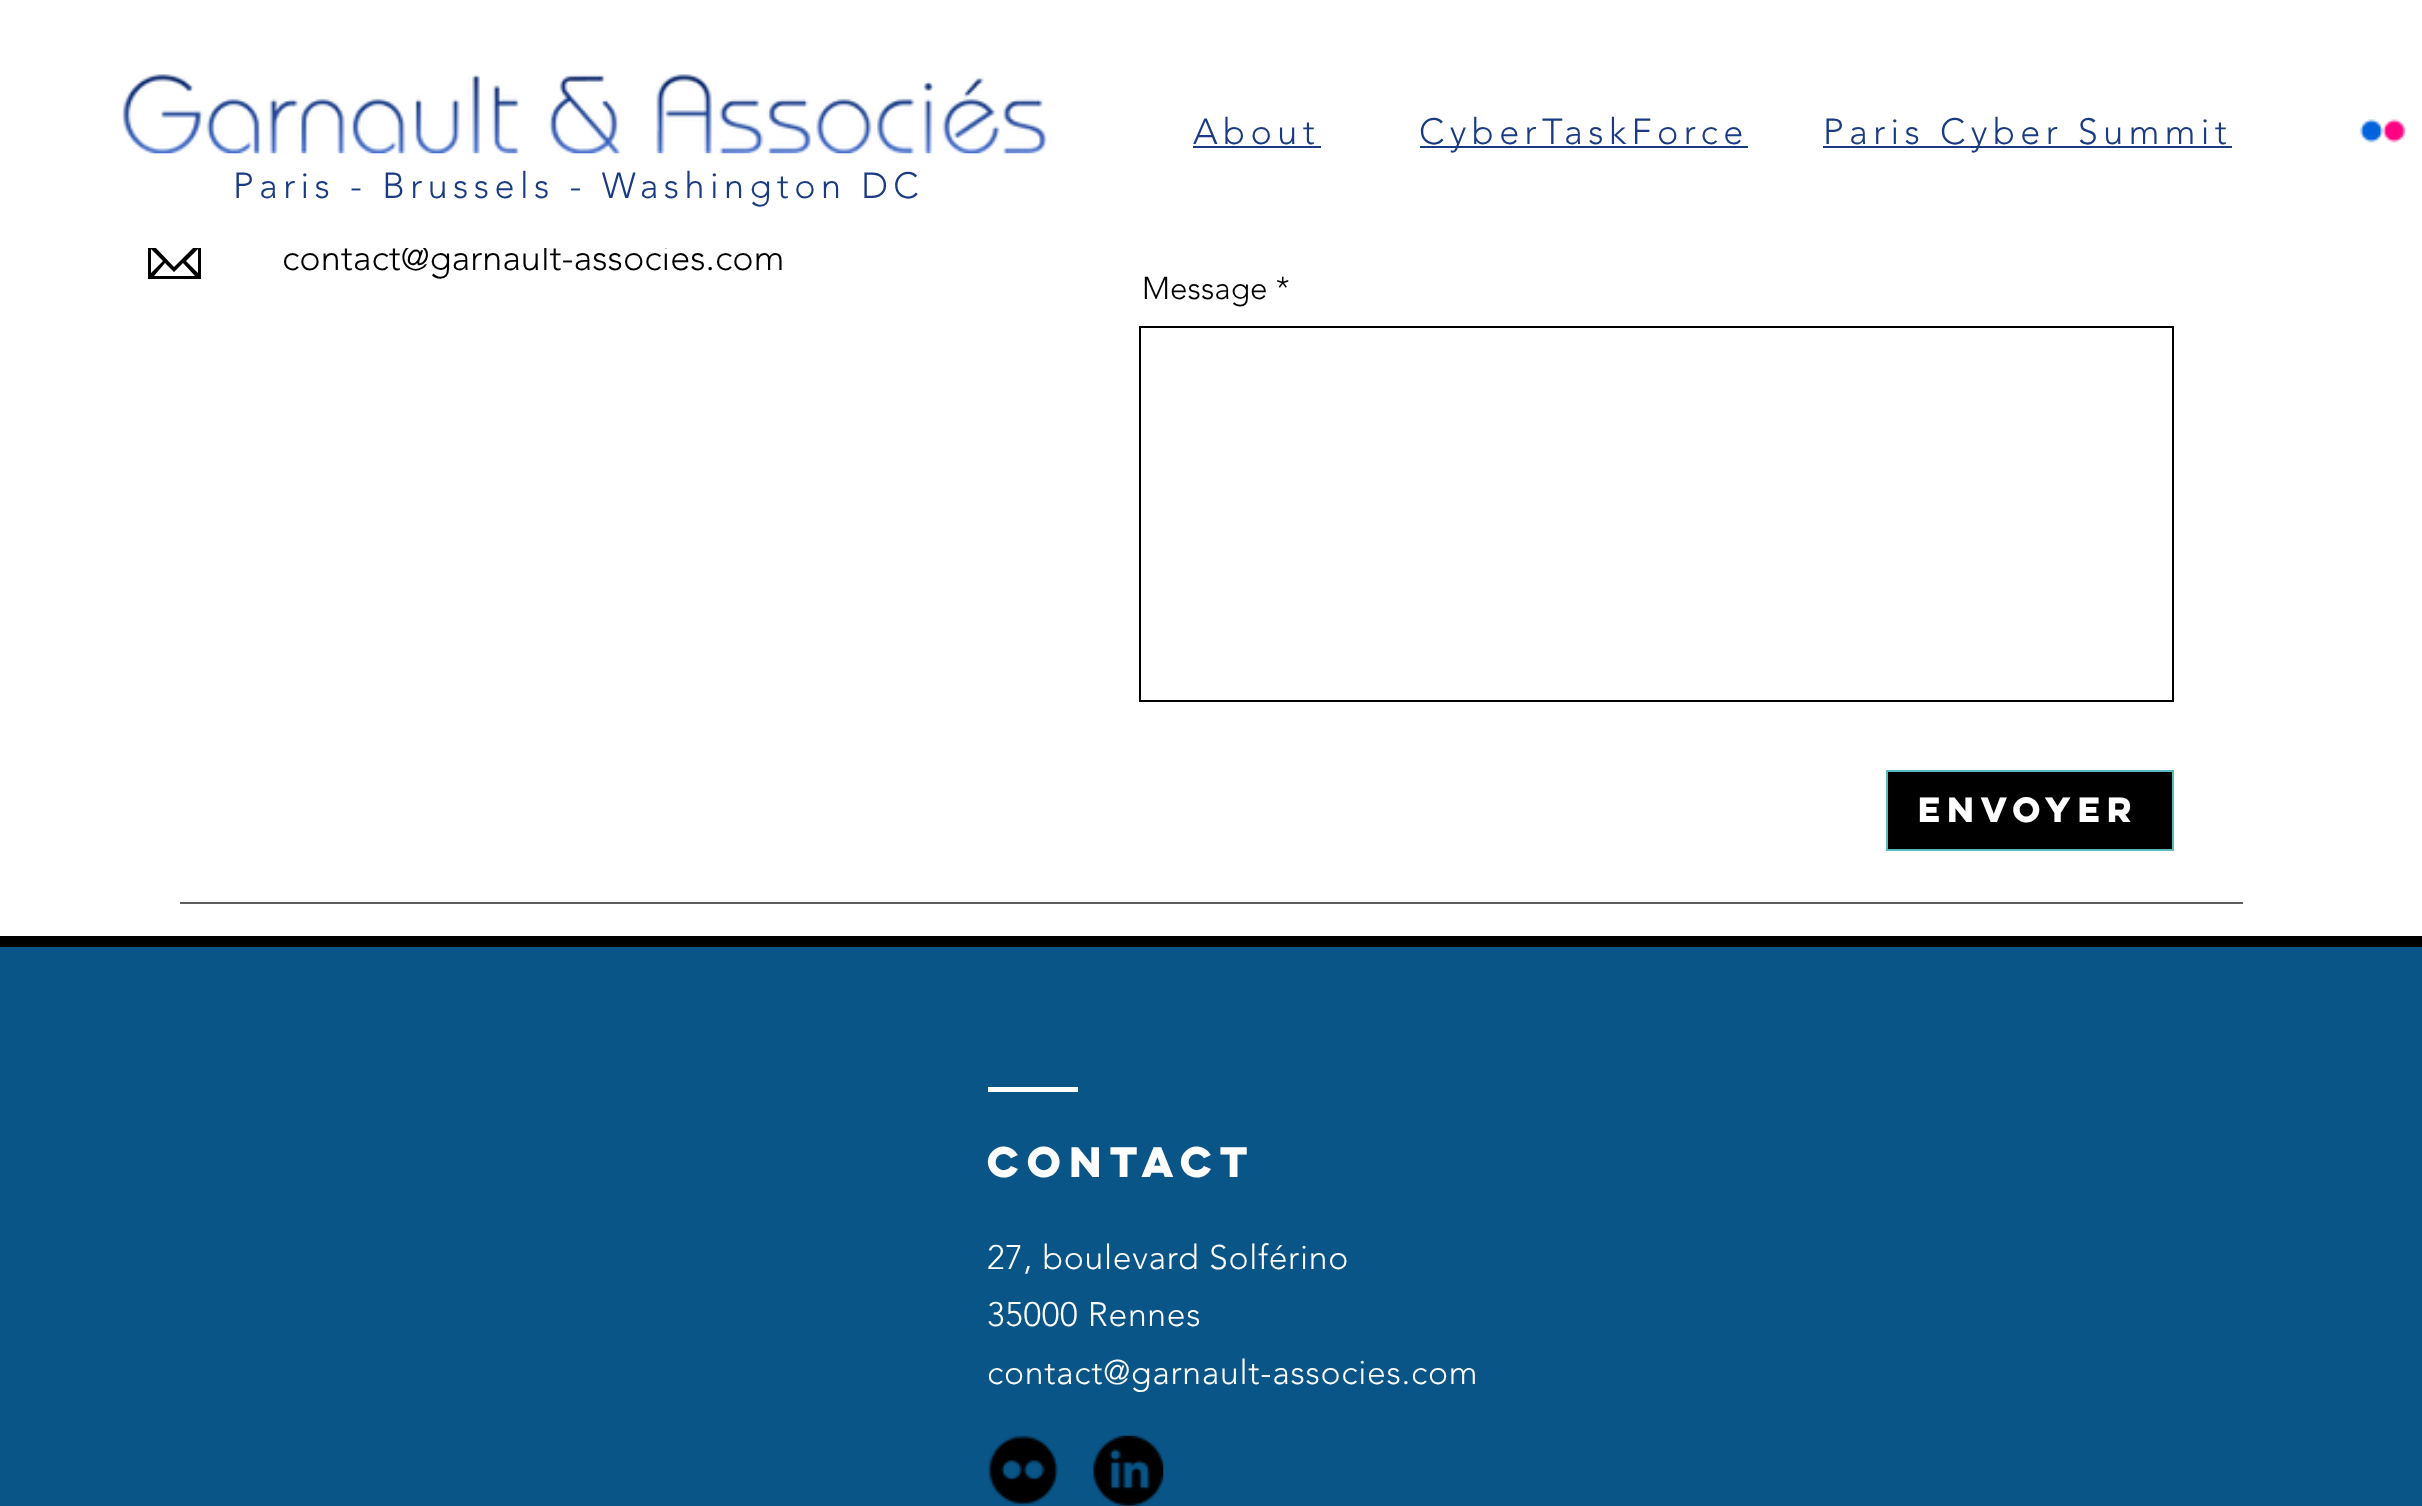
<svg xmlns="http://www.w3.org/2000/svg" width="2422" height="1506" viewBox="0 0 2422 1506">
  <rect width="100%" height="100%" fill="rgb(255,255,255)"/>
  <text x="1193" y="144" font-family="'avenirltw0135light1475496'" font-size="36" font-weight="300" letter-spacing="5.4" fill="rgb(26,59,132)">About</text>
  <rect x="1193" y="146" width="128" height="2" fill="rgb(26,59,132)"/>
  <rect x="1420" y="146" width="328" height="2" fill="rgb(26,59,132)"/>
  <text x="1419" y="144" font-family="'avenirltw0135light1475496'" font-size="36" font-weight="300" letter-spacing="5.4" fill="rgb(26,59,132)">CyberTaskForce</text>
  <rect x="1823" y="146" width="409" height="2" fill="rgb(26,59,132)"/>
  <text x="1823" y="144" font-family="'avenirltw0135light1475496'" font-size="36" font-weight="300" letter-spacing="5.4" fill="rgb(26,59,132)">Paris Cyber Summit</text>
  <image x="2359" y="119" width="47" height="24" href="pic1.png"/>
  <image x="121" y="74" width="926" height="80" href="pic2.png"/>
  <text x="233" y="198" font-family="'avenirltw0135light1475496'" font-size="36" font-weight="300" letter-spacing="5.4" fill="rgb(26,59,132)">Paris - Brussels - Washington DC</text>
  <path d="M148 243V279H201V243ZM174 267L154 246H195ZM163 261L151 273V249ZM165 263L174 272L183 263L195 276H154ZM186 261L198 249V273Z" fill="rgb(0,0,0)"/>
  <text x="282" y="270" font-family="'avenirltw0135light1475496'" font-size="36" font-weight="300" fill="rgb(0,0,0)">contact@garnault-associes.com</text>
  <rect x="148" y="242" width="520" height="6" fill="rgb(255,255,255)"/>
  <text x="1142" y="299" font-family="'avenirltw0135light1475496'" font-size="31.5" font-weight="300" fill="rgb(0,0,0)">Message *</text>
  <rect x="1140" y="327" width="1033" height="374" fill="none" stroke="rgb(0,0,0)" stroke-width="2"/>
  <rect x="1887" y="771" width="286" height="79" fill="rgb(0,0,0)" stroke="rgb(87,187,191)" stroke-width="2"/>
  <text x="1918" y="822" font-family="'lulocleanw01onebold'" font-size="31.5" font-weight="bold" fill="rgb(255,255,255)">Envoyer</text>
  <rect x="180" y="902" width="2063" height="2" fill="rgb(96,94,94)"/>
  <rect x="0" y="947" width="2422" height="559" fill="rgb(10,85,135)"/>
  <rect x="0" y="936" width="2422" height="11" fill="rgb(0,0,0)"/>
  <rect x="988" y="1087" width="90" height="5" fill="rgb(255,255,255)"/>
  <text x="987" y="1177" font-family="'lulocleanw01onebold'" font-size="38.25" font-weight="bold" fill="rgb(255,255,255)">Contact</text>
  <g font-family="'avenirltw0135light1475496'" font-size="33.75" font-weight="300" letter-spacing="0.7" fill="rgb(255,255,255)">
    <text>
      <tspan x="987" y="1269">27, boulevard Solférino</tspan>
      <tspan x="987" y="1326">35000 Rennes</tspan>
      <tspan x="987" y="1384">contact@garnault-associes.com</tspan>
    </text>
  </g>
  <image x="988" y="1435" width="70" height="71" href="pic3.png"/>
  <image x="1093" y="1435" width="71" height="71" href="pic4.png"/>
</svg>
